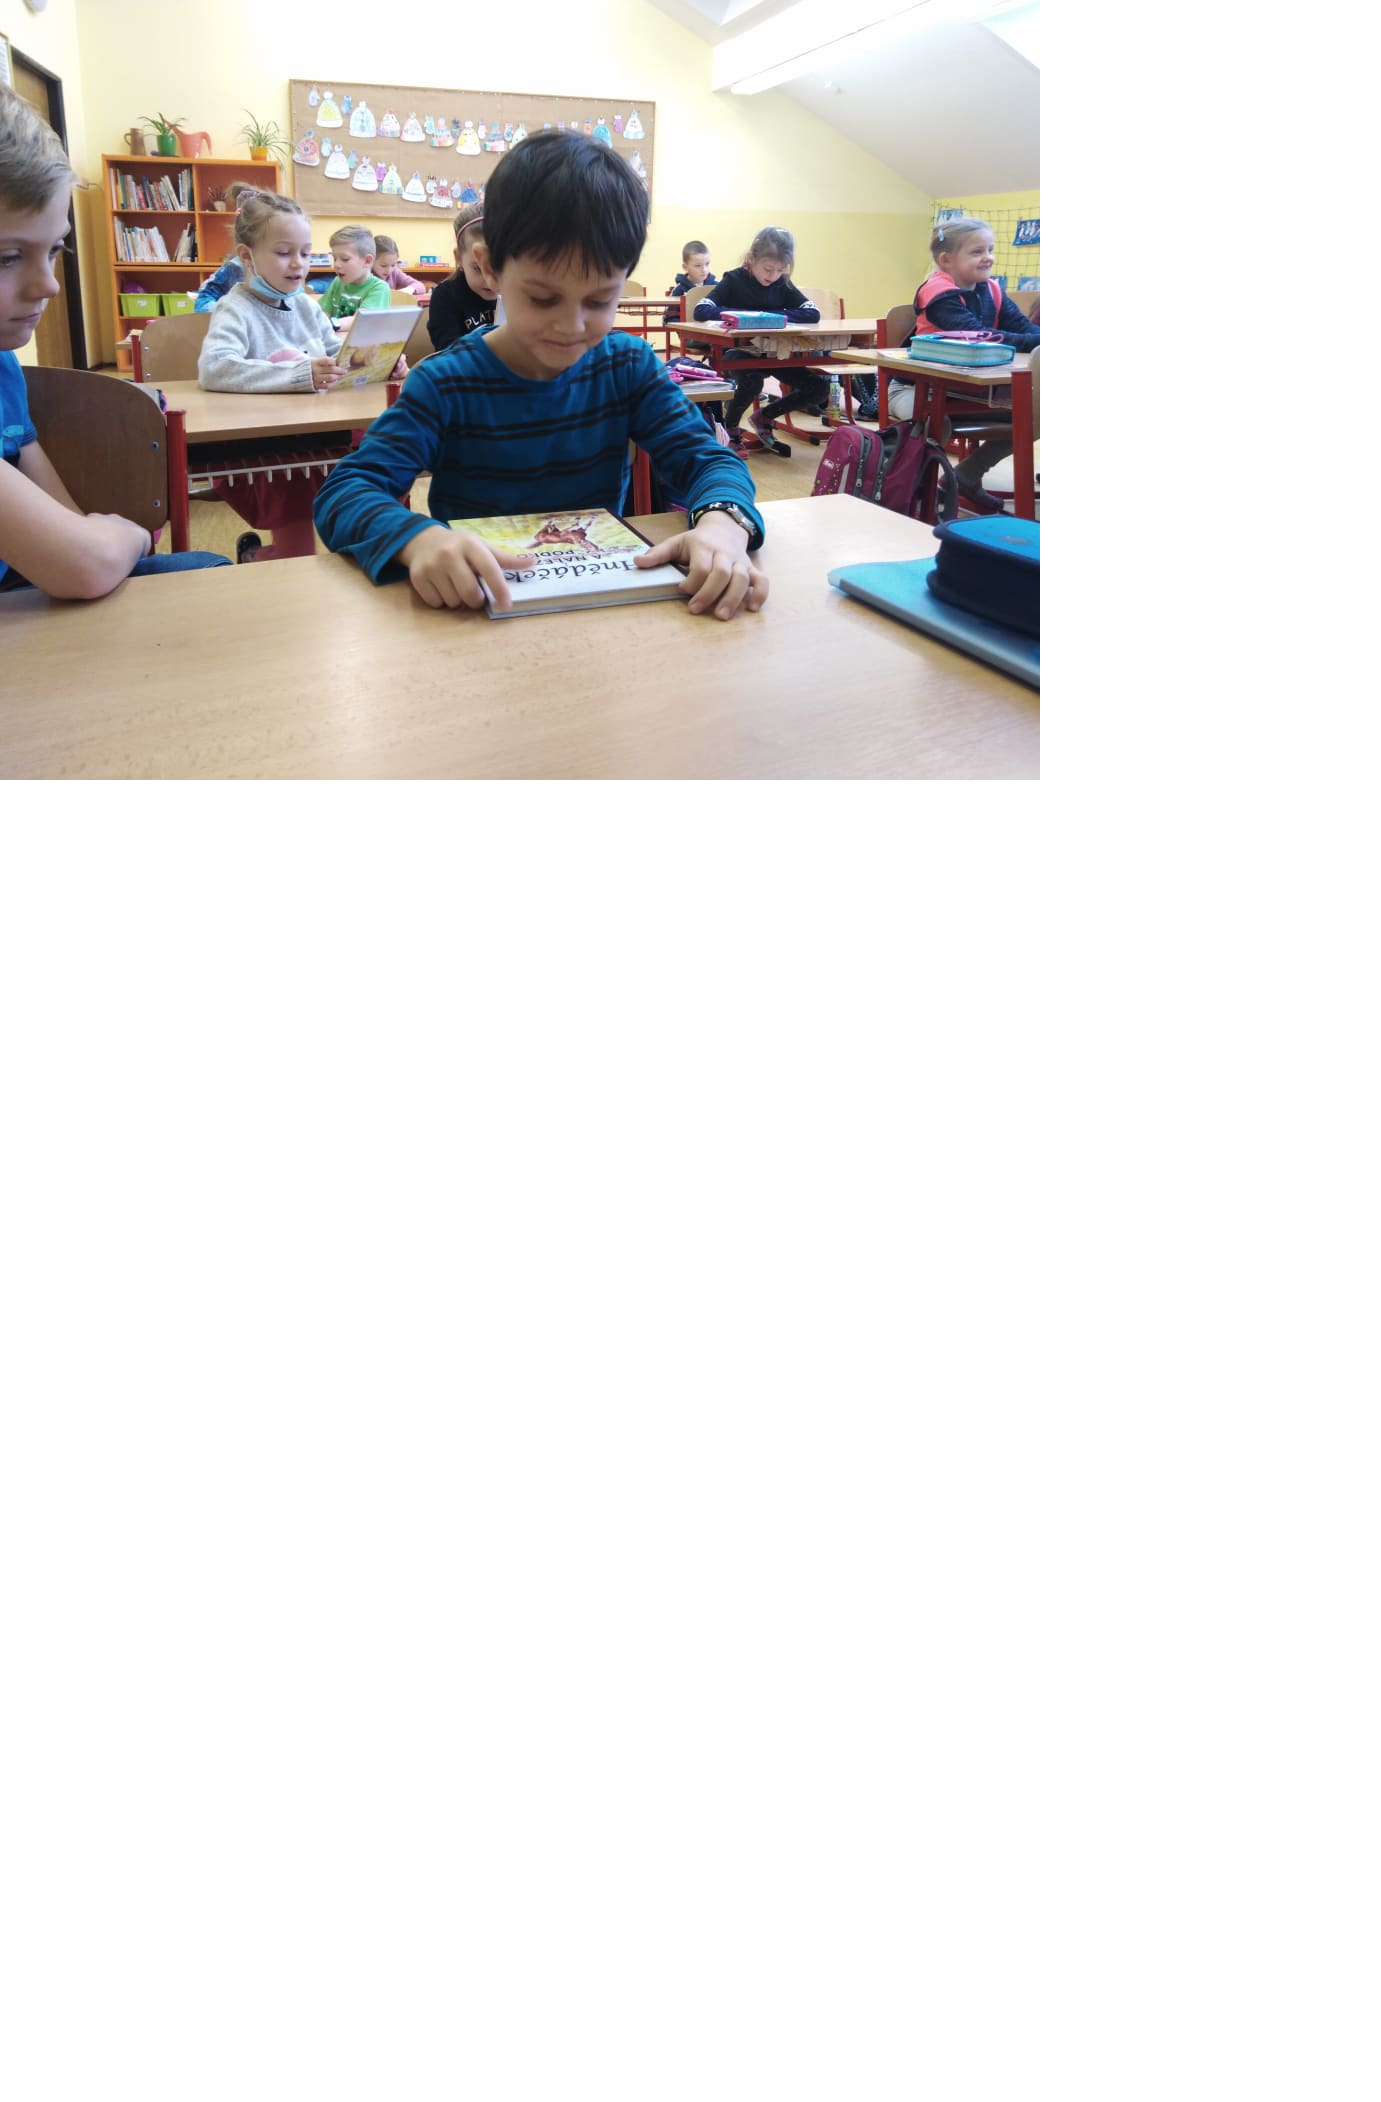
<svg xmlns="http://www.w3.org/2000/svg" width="1381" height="2102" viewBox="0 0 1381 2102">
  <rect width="100%" height="100%" fill="rgb(255,255,255)"/>
  <image x="0" y="0" width="1040" height="780" href="pic1.png"/>
</svg>
